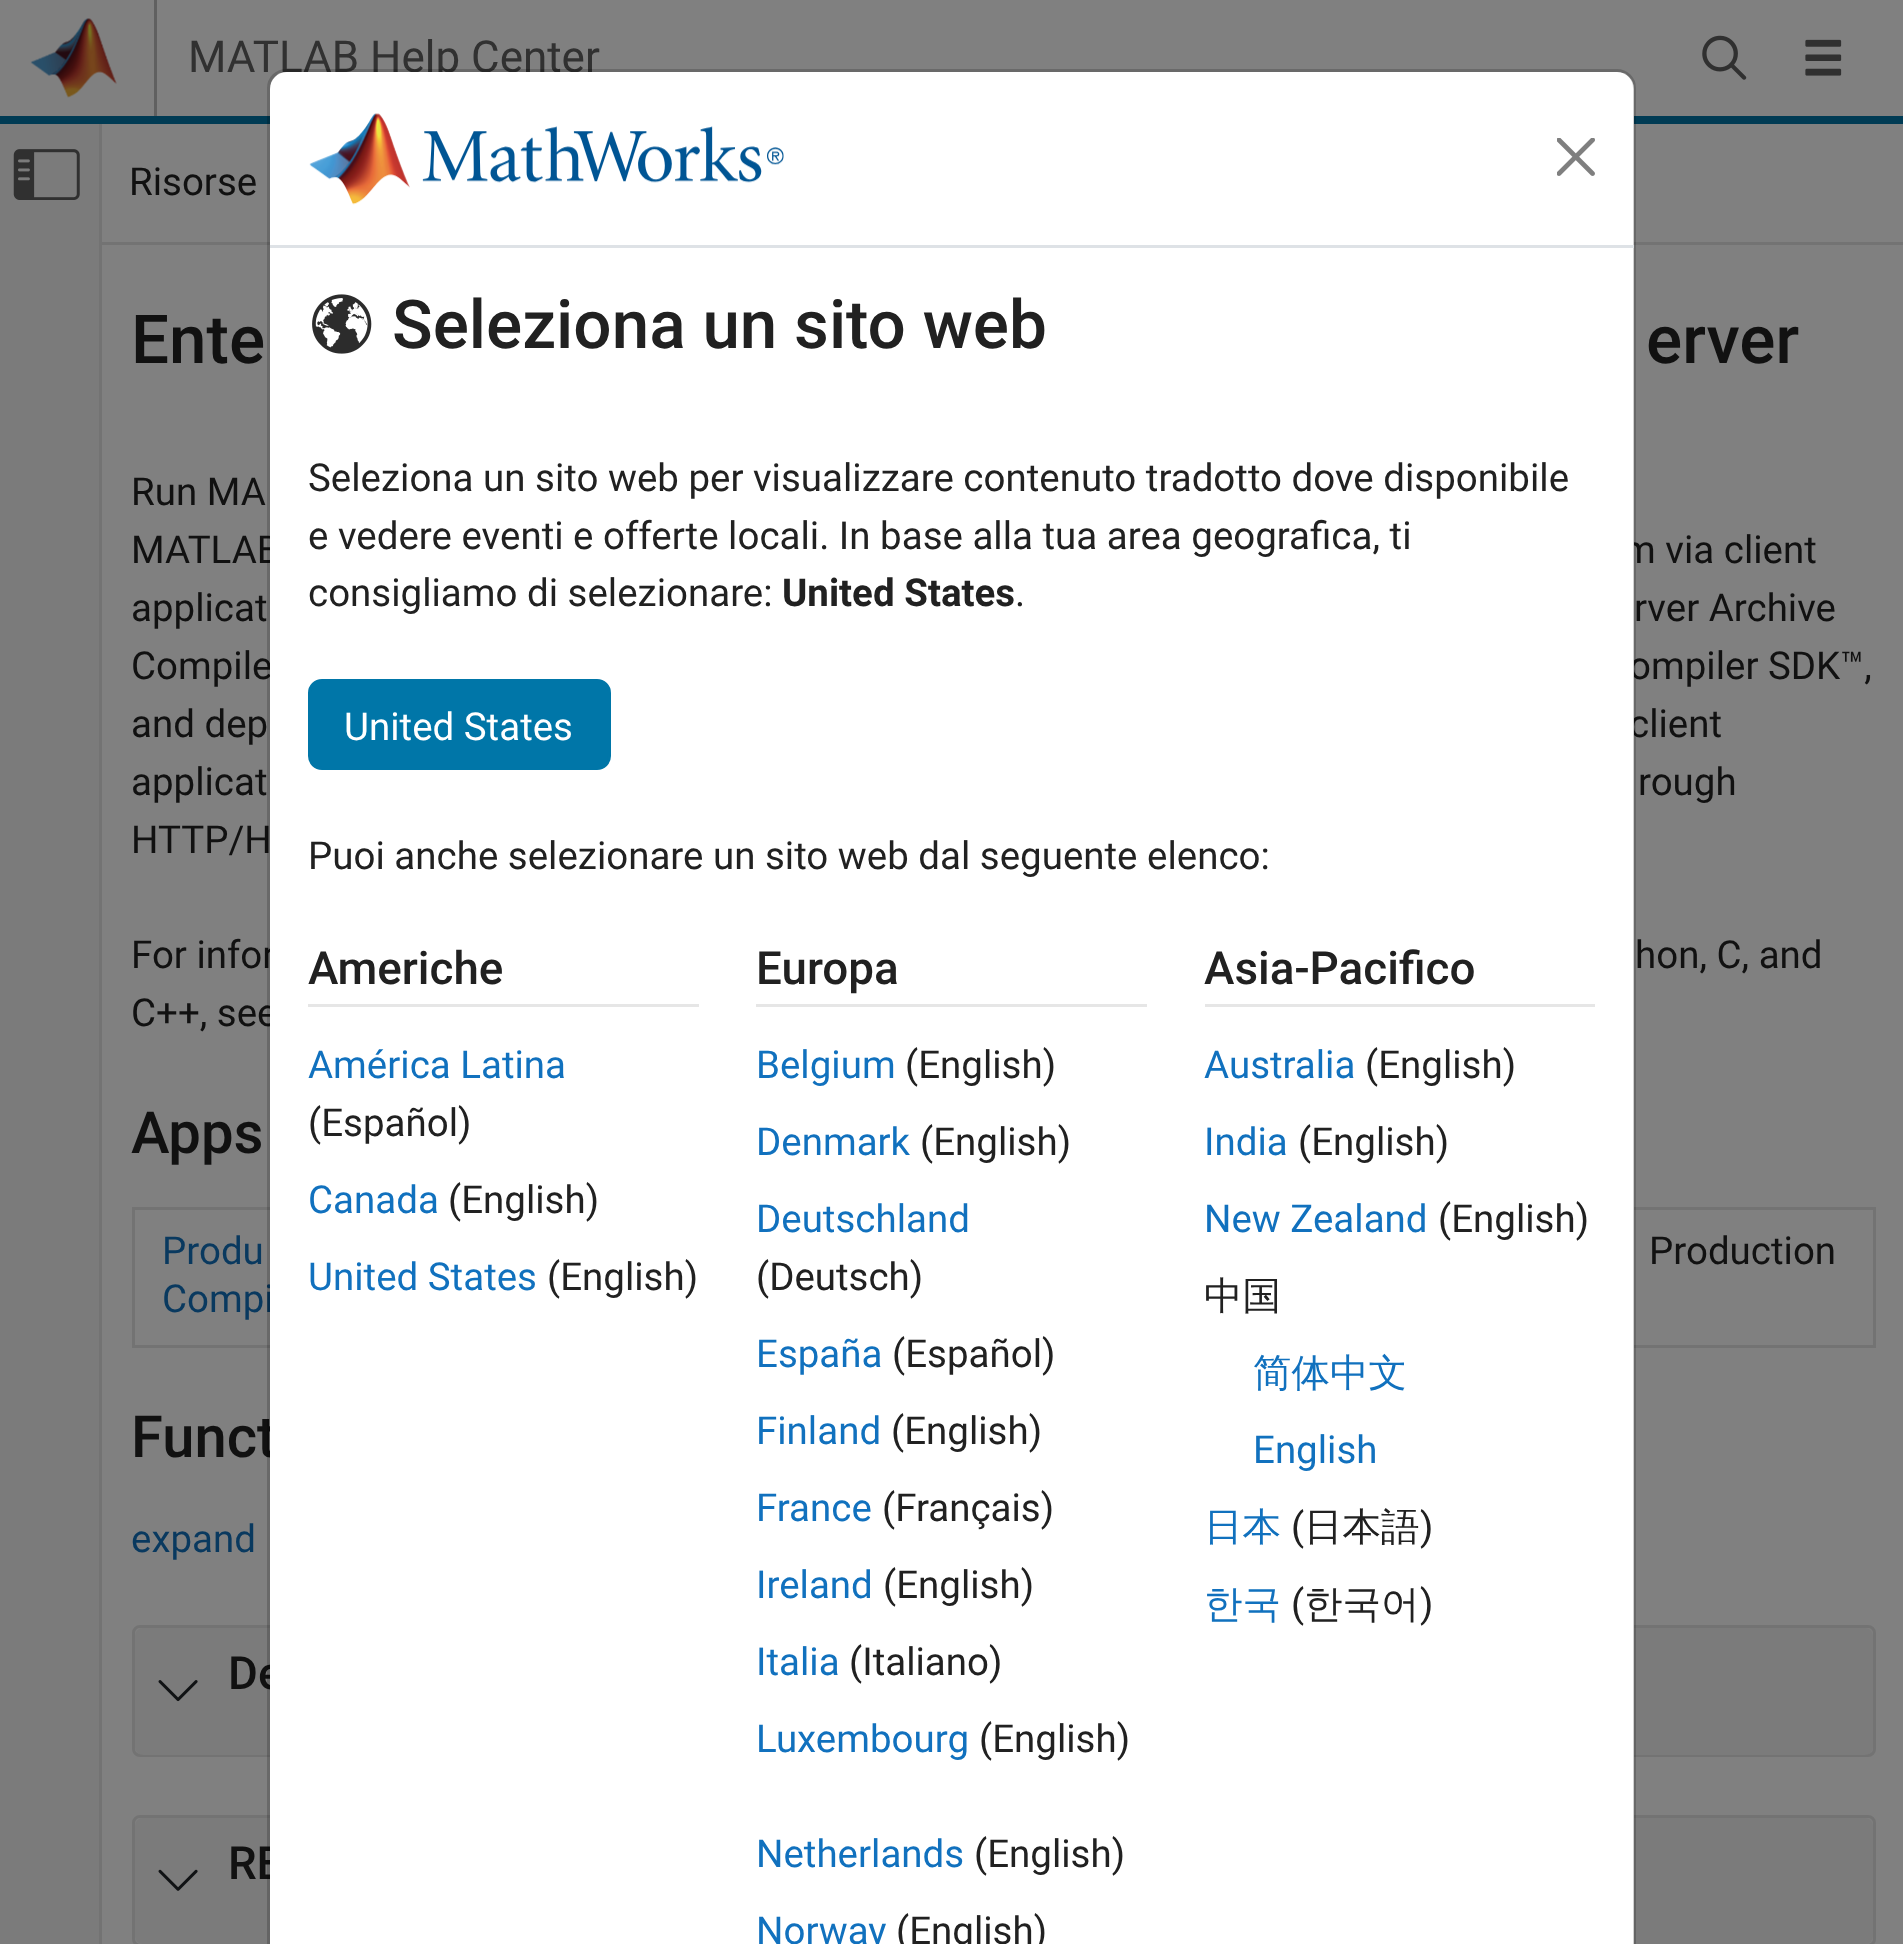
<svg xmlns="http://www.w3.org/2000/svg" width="1903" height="1944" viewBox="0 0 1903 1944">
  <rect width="100%" height="100%" fill="rgb(123,123,123)"/>
  <rect x="0" y="0" width="1903" height="116" fill="rgb(128,128,128)"/>
  <rect x="0" y="116" width="1903" height="8" fill="rgb(0,59,84)"/>
  <rect x="154" y="0" width="3" height="116" fill="rgb(96,96,96)"/>
  <image x="30" y="18" width="87" height="80" href="pic1.png"/>
  <text x="188" y="72" font-family="Roboto" font-size="44" fill="rgb(49,49,49)">MATLAB Help Center</text>
  <image x="1702" y="35" width="45" height="45" href="pic2.png"/>
  <image x="1805" y="39" width="37" height="37" href="pic3.png"/>
  <rect x="99" y="124" width="3" height="1820" fill="rgb(115,115,115)"/>
  <image x="13" y="149" width="67" height="51" href="pic4.png"/>
  <rect x="102" y="124" width="1801" height="118" fill="rgb(128,128,128)"/>
  <rect x="102" y="242" width="1801" height="3" fill="rgb(115,115,115)"/>
  <text x="129" y="195" font-family="Roboto" font-size="38.5" fill="rgb(17,17,17)">Risorse</text>
  <rect x="102" y="245" width="1801" height="1699" fill="rgb(128,128,128)"/>
  <g font-family="Roboto" font-size="38.5" fill="rgb(17,17,17)">
    <text x="131" y="563">MATLAB</text>
    <text x="1622" y="563">m via client</text>
    <text x="131" y="679">Compile</text>
    <text>
      <tspan x="1629" y="679">ompiler SDK™,</tspan>
      <tspan x="1629" y="737">client</tspan>
    </text>
    <text>
      <tspan x="131" y="968">For infor</tspan>
      <tspan x="131" y="1026">C++, see</tspan>
    </text>
  </g>
  <rect x="132" y="1207" width="1744" height="3" fill="rgb(115,115,115)"/>
  <rect x="132" y="1345" width="1744" height="3" fill="rgb(115,115,115)"/>
  <text x="162" y="1312" font-family="Roboto" font-size="38.5" fill="rgb(9,57,95)">Compi</text>
  <text x="131" y="1457" font-family="Roboto" font-size="58" font-weight="500" fill="rgb(17,17,17)">Funct</text>
  <rect x="133.5" y="1626.5" width="1741" height="129" rx="6.5" fill="none" stroke="rgb(115,115,115)" stroke-width="3"/>
  <rect x="135" y="1628" width="1738" height="127" rx="8" fill="rgb(123,123,123)"/>
  <text x="228" y="1689" font-family="Roboto" font-size="45.75" font-weight="500" fill="rgb(17,17,17)">De</text>
  <rect x="133.5" y="1816.5" width="1741" height="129" rx="6.5" fill="none" stroke="rgb(115,115,115)" stroke-width="3"/>
  <rect x="135" y="1818" width="1738" height="126" rx="8" fill="rgb(123,123,123)"/>
  <text x="228" y="1879" font-family="Roboto" font-size="45.75" font-weight="500" fill="rgb(17,17,17)">RE</text>
  <path d="M287 72H1617C1626.5 72 1634 79.5 1634 89V1944H270V89C270 79.5 277.5 72 287 72Z" fill="rgb(255,255,255)"/>
  <text x="131" y="853" font-family="Roboto" font-size="38.5" fill="rgb(17,17,17)">HTTP/H</text>
  <rect x="268.5" y="70.5" width="1366" height="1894" rx="17.5" fill="none" stroke="rgba(0,0,0,0.18)" stroke-width="3"/>
  <rect x="270" y="245" width="1364" height="3" fill="rgb(222,226,230)"/>
  <image x="309" y="113" width="475" height="92" href="pic5.png"/>
  <image x="1557" y="138" width="38" height="38" href="pic6.png"/>
  <image x="312" y="294" width="60" height="60" href="pic7.png"/>
  <text x="392" y="348" font-family="Roboto" font-size="67.4" font-weight="500" fill="rgb(33,33,33)">Seleziona un sito web</text>
  <g font-family="Roboto" font-size="38.5" fill="rgb(33,33,33)">
    <text>
      <tspan x="308" y="491">Seleziona un sito web per visualizzare contenuto tradotto dove disponibile</tspan>
      <tspan x="308" y="549">e vedere eventi e offerte locali. In base alla tua area geografica, ti</tspan>
      <tspan x="308" y="606">consigliamo di selezionare:</tspan>
    </text>
  </g>
  <text x="782" y="606" font-family="Roboto" font-size="38.5" font-weight="bold" fill="rgb(33,33,33)">United States</text>
  <text x="1015" y="606" font-family="Roboto" font-size="38.5" fill="rgb(33,33,33)">.</text>
  <rect x="309.5" y="680.5" width="300" height="88" rx="12.5" fill="rgb(0,118,168)" stroke="rgb(0,118,168)" stroke-width="3"/>
  <text x="344" y="740" font-family="Roboto" font-size="38.5" fill="rgb(255,255,255)">United States</text>
  <text x="308" y="869" font-family="Roboto" font-size="38.5" fill="rgb(33,33,33)">Puoi anche selezionare un sito web dal seguente elenco:</text>
  <rect x="308" y="1004" width="391" height="3" fill="rgb(230,230,230)"/>
  <text x="308" y="984" font-family="Roboto" font-size="45.75" font-weight="500" fill="rgb(33,33,33)">Americhe</text>
  <text x="308" y="1078" font-family="Roboto" font-size="38.5" fill="rgb(17,113,190)">América Latina</text>
  <text x="308" y="1136" font-family="Roboto" font-size="38.5" fill="rgb(33,33,33)">(Español)</text>
  <text x="308" y="1213" font-family="Roboto" font-size="38.5" fill="rgb(17,113,190)">Canada</text>
  <text x="448" y="1213" font-family="Roboto" font-size="38.5" fill="rgb(33,33,33)">(English)</text>
  <text x="308" y="1290" font-family="Roboto" font-size="38.5" fill="rgb(17,113,190)">United States</text>
  <text x="547" y="1290" font-family="Roboto" font-size="38.5" fill="rgb(33,33,33)">(English)</text>
  <rect x="756" y="1004" width="391" height="3" fill="rgb(230,230,230)"/>
  <text x="756" y="984" font-family="Roboto" font-size="45.75" font-weight="500" fill="rgb(33,33,33)">Europa</text>
  <text x="756" y="1078" font-family="Roboto" font-size="38.5" fill="rgb(17,113,190)">Belgium</text>
  <text x="905" y="1078" font-family="Roboto" font-size="38.5" fill="rgb(33,33,33)">(English)</text>
  <text x="756" y="1155" font-family="Roboto" font-size="38.5" fill="rgb(17,113,190)">Denmark</text>
  <text x="920" y="1155" font-family="Roboto" font-size="38.5" fill="rgb(33,33,33)">(English)</text>
  <text x="756" y="1232" font-family="Roboto" font-size="38.5" fill="rgb(17,113,190)">Deutschland</text>
  <text x="756" y="1290" font-family="Roboto" font-size="38.5" fill="rgb(33,33,33)">(Deutsch)</text>
  <text x="756" y="1367" font-family="Roboto" font-size="38.5" fill="rgb(17,113,190)">España</text>
  <text x="892" y="1367" font-family="Roboto" font-size="38.5" fill="rgb(33,33,33)">(Español)</text>
  <text x="756" y="1444" font-family="Roboto" font-size="38.5" fill="rgb(17,113,190)">Finland</text>
  <text x="891" y="1444" font-family="Roboto" font-size="38.5" fill="rgb(33,33,33)">(English)</text>
  <text x="756" y="1521" font-family="Roboto" font-size="38.5" fill="rgb(17,113,190)">France</text>
  <text x="882" y="1521" font-family="Roboto" font-size="38.5" fill="rgb(33,33,33)">(Français)</text>
  <text x="756" y="1598" font-family="Roboto" font-size="38.5" fill="rgb(17,113,190)">Ireland</text>
  <text x="883" y="1598" font-family="Roboto" font-size="38.5" fill="rgb(33,33,33)">(English)</text>
  <text x="756" y="1675" font-family="Roboto" font-size="38.5" fill="rgb(17,113,190)">Italia</text>
  <text x="849" y="1675" font-family="Roboto" font-size="38.5" fill="rgb(33,33,33)">(Italiano)</text>
  <text x="756" y="1752" font-family="Roboto" font-size="38.5" fill="rgb(17,113,190)">Luxembourg</text>
  <text x="979" y="1752" font-family="Roboto" font-size="38.5" fill="rgb(33,33,33)">(English)</text>
  <text x="756" y="1867" font-family="Roboto" font-size="38.5" fill="rgb(17,113,190)">Netherlands</text>
  <text x="974" y="1867" font-family="Roboto" font-size="38.5" fill="rgb(33,33,33)">(English)</text>
  <text x="756" y="1944" font-family="Roboto" font-size="38.5" fill="rgb(17,113,190)">Norway</text>
  <text x="896" y="1944" font-family="Roboto" font-size="38.5" fill="rgb(33,33,33)">(English)</text>
  <rect x="1205" y="1004" width="390" height="3" fill="rgb(230,230,230)"/>
  <text x="1204" y="984" font-family="Roboto" font-size="45.75" font-weight="500" fill="rgb(33,33,33)">Asia-Pacifico</text>
  <text x="1204" y="1078" font-family="Roboto" font-size="38.5" fill="rgb(17,113,190)">Australia</text>
  <text x="1365" y="1078" font-family="Roboto" font-size="38.5" fill="rgb(33,33,33)">(English)</text>
  <text x="1204" y="1155" font-family="Roboto" font-size="38.5" fill="rgb(17,113,190)">India</text>
  <text x="1298" y="1155" font-family="Roboto" font-size="38.5" fill="rgb(33,33,33)">(English)</text>
  <text x="1204" y="1232" font-family="Roboto" font-size="38.5" fill="rgb(17,113,190)">New Zealand</text>
  <text x="1438" y="1232" font-family="Roboto" font-size="38.5" fill="rgb(33,33,33)">(English)</text>
  <text x="1204" y="1309" font-family="WenQuanYi Zen Hei" font-size="38.5" font-weight="500" fill="rgb(33,33,33)">中国</text>
  <text x="1253" y="1386" font-family="WenQuanYi Zen Hei" font-size="38.5" font-weight="500" fill="rgb(17,113,190)">简体中文</text>
  <text x="1253" y="1463" font-family="Roboto" font-size="38.5" fill="rgb(17,113,190)">English</text>
  <text x="1204" y="1540" font-family="WenQuanYi Zen Hei" font-size="38.5" font-weight="500" fill="rgb(17,113,190)">日本</text>
  <text x="1291" y="1540" font-family="Roboto" font-size="38.5" fill="rgb(33,33,33)">(</text>
  <text x="1304" y="1540" font-family="WenQuanYi Zen Hei" font-size="38.5" font-weight="500" fill="rgb(33,33,33)">日本語</text>
  <text x="1420" y="1540" font-family="Roboto" font-size="38.5" fill="rgb(33,33,33)">)</text>
  <text x="1204" y="1617" font-family="WenQuanYi Zen Hei" font-size="38.5" font-weight="500" fill="rgb(17,113,190)">한국</text>
  <text x="1291" y="1617" font-family="Roboto" font-size="38.5" fill="rgb(33,33,33)">(</text>
  <text x="1304" y="1617" font-family="WenQuanYi Zen Hei" font-size="38.5" font-weight="500" fill="rgb(33,33,33)">한국어</text>
  <text x="1420" y="1617" font-family="Roboto" font-size="38.5" fill="rgb(33,33,33)">)</text>
  <g font-family="Roboto" font-size="67.4" font-weight="500" fill="rgb(17,17,17)">
    <text x="131" y="363">Ente</text>
    <text x="1646" y="363">erver</text>
  </g>
  <g font-family="Roboto" font-size="38.5" fill="rgb(17,17,17)">
    <text x="131" y="505">Run MA</text>
    <text x="131" y="621">applicat</text>
    <text x="1634" y="621">rver Archive</text>
    <text>
      <tspan x="131" y="737">and dep</tspan>
      <tspan x="131" y="795">applicat</tspan>
    </text>
    <text x="1638" y="795">rough</text>
    <text x="1635" y="968">hon, C, and</text>
  </g>
  <text x="131" y="1153" font-family="Roboto" font-size="58" font-weight="500" fill="rgb(17,17,17)">Apps</text>
  <rect x="132" y="1207" width="3" height="141" fill="rgb(115,115,115)"/>
  <text x="162" y="1264" font-family="Roboto" font-size="38.5" fill="rgb(9,57,95)">Produ</text>
  <rect x="1873" y="1207" width="3" height="141" fill="rgb(115,115,115)"/>
  <text x="1649" y="1264" font-family="Roboto" font-size="38.5" fill="rgb(17,17,17)">Production</text>
  <text x="131" y="1552" font-family="Roboto" font-size="38.5" fill="rgb(9,57,95)">expand</text>
  <image x="158" y="1680" width="40" height="22" href="pic8.png"/>
  <image x="158" y="1869" width="40" height="22" href="pic9.png"/>
</svg>
